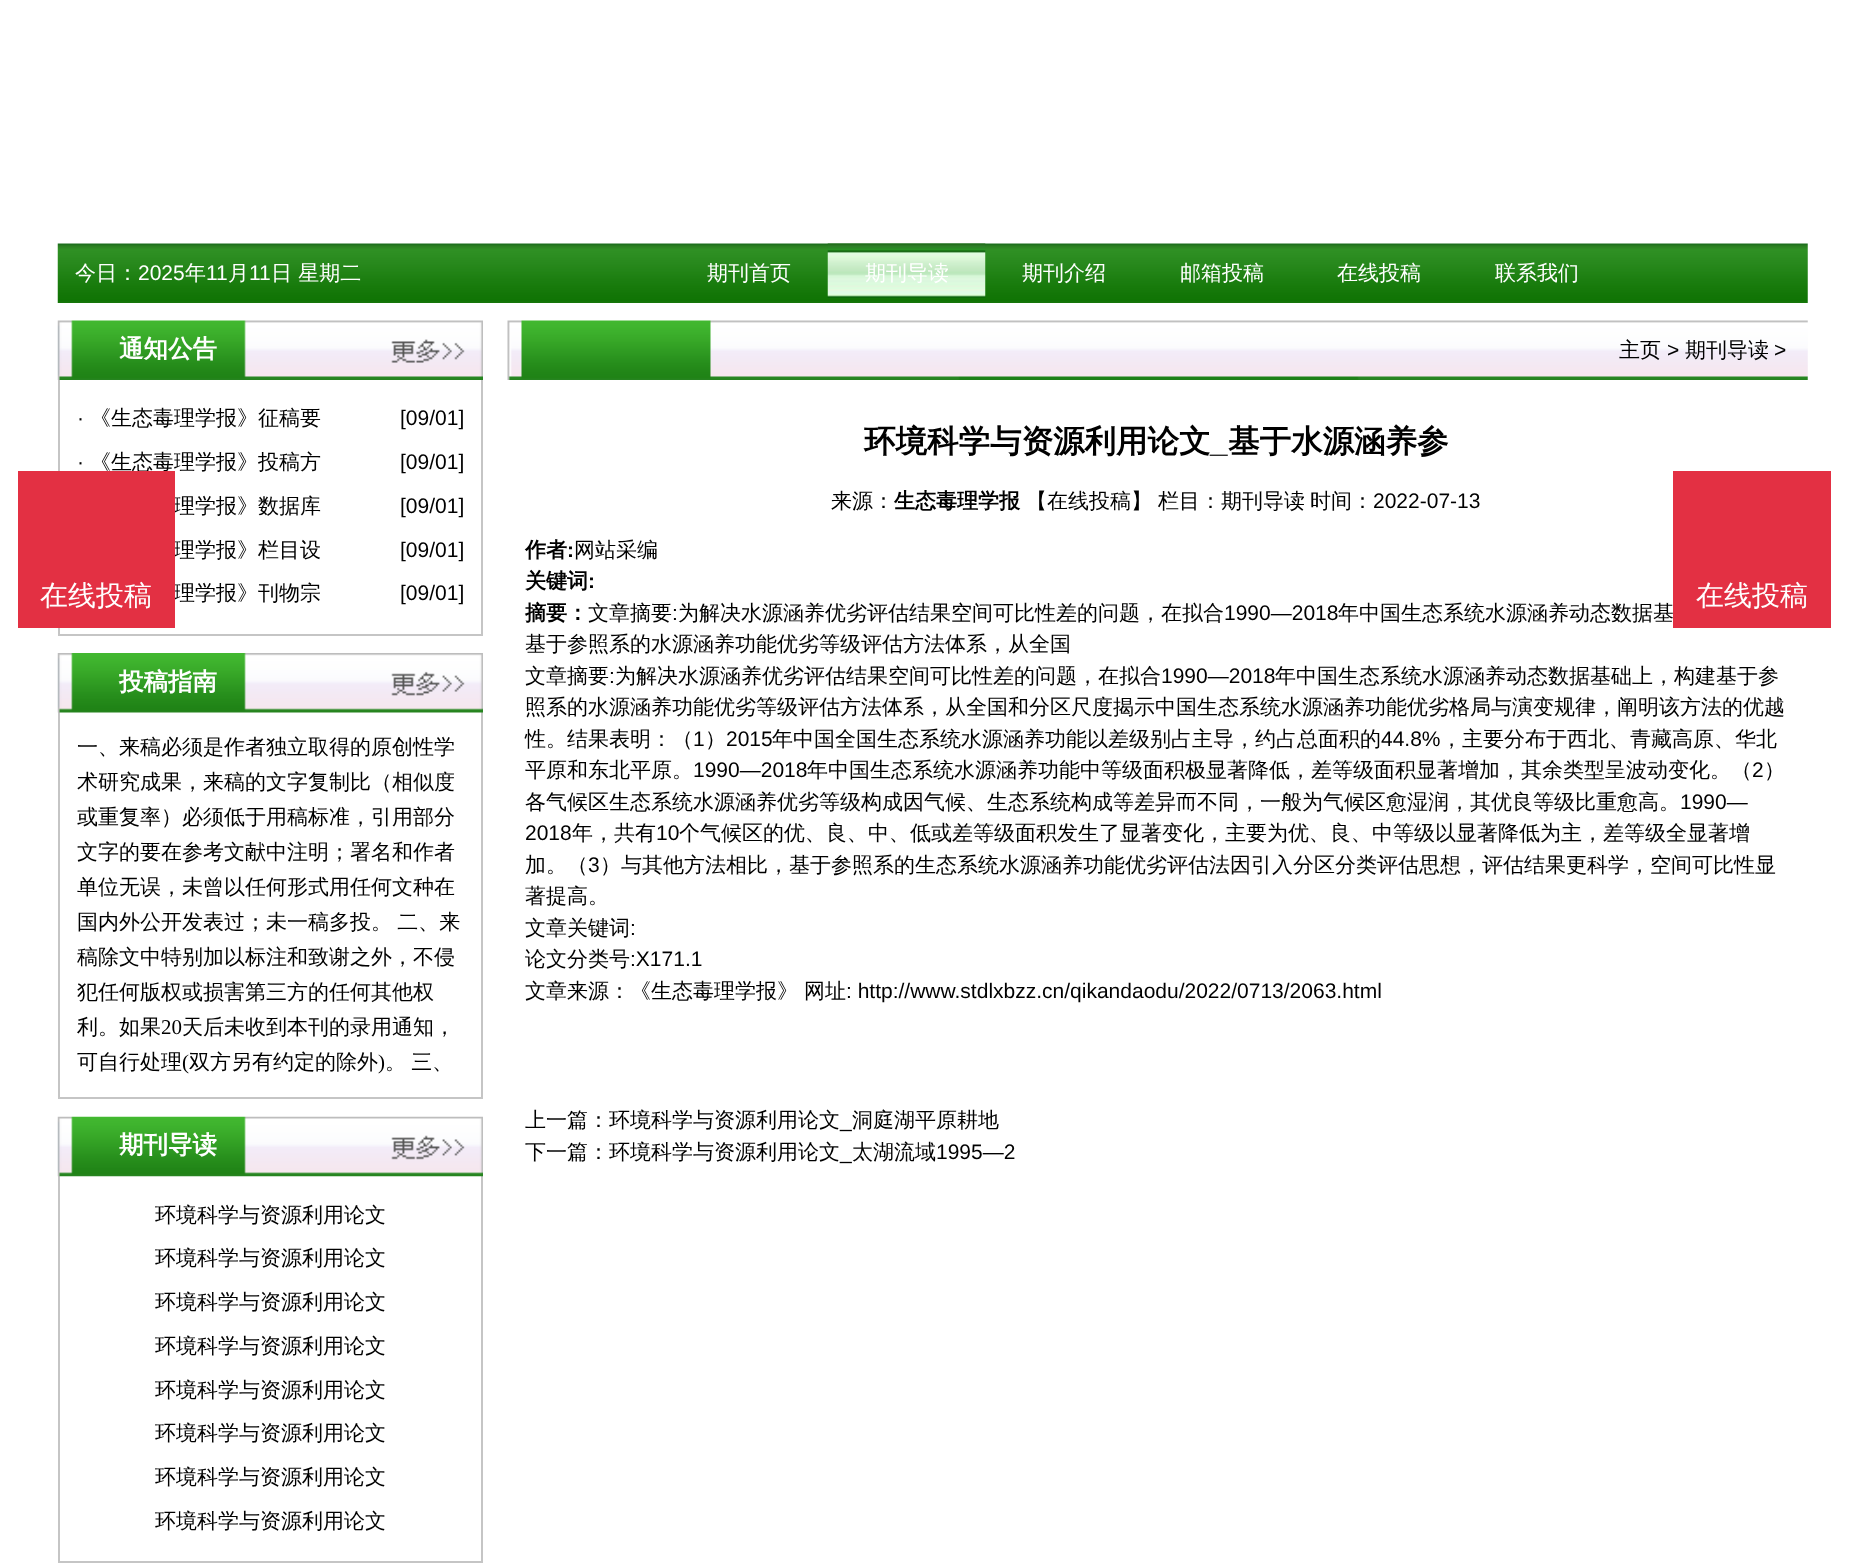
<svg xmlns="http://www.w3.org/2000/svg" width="1864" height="1567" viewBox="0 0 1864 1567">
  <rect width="100%" height="100%" fill="rgb(255,255,255)"/>
  <image x="57" y="243" width="1751" height="60" href="pic1.png"/>
  <text x="75" y="280" font-family="WenQuanYi Zen Hei" font-size="21" font-weight="500" fill="rgb(255,255,255)">今日：</text>
  <text x="138" y="280" font-family="Liberation Sans" font-size="21" fill="rgb(255,255,255)">2025</text>
  <text x="185" y="280" font-family="WenQuanYi Zen Hei" font-size="21" font-weight="500" fill="rgb(255,255,255)">年</text>
  <text x="206" y="280" font-family="Liberation Sans" font-size="21" fill="rgb(255,255,255)">11</text>
  <text x="228" y="280" font-family="WenQuanYi Zen Hei" font-size="21" font-weight="500" fill="rgb(255,255,255)">月</text>
  <text x="249" y="280" font-family="Liberation Sans" font-size="21" fill="rgb(255,255,255)">11</text>
  <g font-family="WenQuanYi Zen Hei" font-size="21" font-weight="500" fill="rgb(255,255,255)">
    <text x="271" y="280">日 星期二</text>
    <text x="707" y="280">期刊首页</text>
  </g>
  <image x="827" y="243" width="159" height="55" href="pic2.png"/>
  <g font-family="WenQuanYi Zen Hei" font-size="21" font-weight="500" fill="rgb(255,255,255)">
    <text x="865" y="280">期刊导读</text>
    <text x="1022" y="280">期刊介绍</text>
    <text x="1180" y="280">邮箱投稿</text>
    <text x="1337" y="280">在线投稿</text>
    <text x="1495" y="280">联系我们</text>
  </g>
  <image x="57" y="320" width="426" height="60" href="pic3.png"/>
  <text x="119" y="357" font-family="WenQuanYi Zen Hei" font-size="24.5" font-weight="bold" fill="rgb(255,255,255)">通知公告</text>
  <rect x="481" y="380" width="2" height="255" fill="rgb(197,197,197)"/>
  <rect x="58" y="634" width="425" height="2" fill="rgb(197,197,197)"/>
  <rect x="58" y="380" width="2" height="255" fill="rgb(197,197,197)"/>
  <text x="77" y="425" font-family="Liberation Sans" font-size="21" fill="rgb(0,0,0)">·</text>
  <text x="90" y="425" font-family="WenQuanYi Zen Hei" font-size="21" font-weight="500" fill="rgb(0,0,0)">《生态毒理学报》征稿要</text>
  <g font-family="Liberation Sans" font-size="21" fill="rgb(0,0,0)">
    <text x="400" y="425">[09/01]</text>
    <text x="77" y="469">·</text>
  </g>
  <text x="90" y="469" font-family="WenQuanYi Zen Hei" font-size="21" font-weight="500" fill="rgb(0,0,0)">《生态毒理学报》投稿方</text>
  <text x="400" y="469" font-family="Liberation Sans" font-size="21" fill="rgb(0,0,0)">[09/01]</text>
  <text x="174" y="513" font-family="WenQuanYi Zen Hei" font-size="21" font-weight="500" fill="rgb(0,0,0)">理学报》数据库</text>
  <text x="400" y="513" font-family="Liberation Sans" font-size="21" fill="rgb(0,0,0)">[09/01]</text>
  <text x="174" y="557" font-family="WenQuanYi Zen Hei" font-size="21" font-weight="500" fill="rgb(0,0,0)">理学报》栏目设</text>
  <text x="400" y="557" font-family="Liberation Sans" font-size="21" fill="rgb(0,0,0)">[09/01]</text>
  <text x="174" y="600" font-family="WenQuanYi Zen Hei" font-size="21" font-weight="500" fill="rgb(0,0,0)">理学报》刊物宗</text>
  <text x="400" y="600" font-family="Liberation Sans" font-size="21" fill="rgb(0,0,0)">[09/01]</text>
  <rect x="481" y="712" width="2" height="387" fill="rgb(197,197,197)"/>
  <rect x="58" y="1097" width="425" height="2" fill="rgb(197,197,197)"/>
  <rect x="58" y="712" width="2" height="387" fill="rgb(197,197,197)"/>
  <image x="57" y="653" width="426" height="60" href="pic4.png"/>
  <text x="119" y="690" font-family="WenQuanYi Zen Hei" font-size="24.5" font-weight="bold" fill="rgb(255,255,255)">投稿指南</text>
  <g font-family="WenQuanYi Zen Hei" font-size="21" font-weight="500" fill="rgb(0,0,0)">
    <text>
      <tspan x="77" y="754">一、来稿必须是作者独立取得的原创性学</tspan>
      <tspan x="77" y="789">术研究成果，来稿的文字复制比（相似度</tspan>
      <tspan x="77" y="824">或重复率）必须低于用稿标准，引用部分</tspan>
      <tspan x="77" y="859">文字的要在参考文献中注明；署名和作者</tspan>
      <tspan x="77" y="894">单位无误，未曾以任何形式用任何文种在</tspan>
      <tspan x="77" y="929" word-spacing="-1">国内外公开发表过；未一稿多投。 二、来</tspan>
      <tspan x="77" y="964">稿除文中特别加以标注和致谢之外，不侵</tspan>
      <tspan x="77" y="999">犯任何版权或损害第三方的任何其他权</tspan>
      <tspan x="77" y="1034">利。如果</tspan>
    </text>
  </g>
  <text x="161" y="1034" font-family="Liberation Serif" font-size="21" fill="rgb(0,0,0)">20</text>
  <g font-family="WenQuanYi Zen Hei" font-size="21" font-weight="500" fill="rgb(0,0,0)">
    <text x="182" y="1034">天后未收到本刊的录用通知，</text>
    <text x="77" y="1069">可自行处理</text>
  </g>
  <text x="182" y="1069" font-family="Liberation Serif" font-size="21" fill="rgb(0,0,0)">(</text>
  <text x="189" y="1069" font-family="WenQuanYi Zen Hei" font-size="21" font-weight="500" fill="rgb(0,0,0)">双方另有约定的除外</text>
  <text x="378" y="1069" font-family="Liberation Serif" font-size="21" fill="rgb(0,0,0)">)</text>
  <text x="385" y="1069" word-spacing="-1" font-family="WenQuanYi Zen Hei" font-size="21" font-weight="500" fill="rgb(0,0,0)">。 三、</text>
  <rect x="481" y="1176" width="2" height="387" fill="rgb(197,197,197)"/>
  <rect x="58" y="1561" width="425" height="2" fill="rgb(197,197,197)"/>
  <rect x="58" y="1176" width="2" height="387" fill="rgb(197,197,197)"/>
  <image x="57" y="1116" width="426" height="61" href="pic5.png"/>
  <text x="119" y="1153" font-family="WenQuanYi Zen Hei" font-size="24.5" font-weight="bold" fill="rgb(255,255,255)">期刊导读</text>
  <g font-family="WenQuanYi Zen Hei" font-size="21" font-weight="500" fill="rgb(0,0,0)">
    <text x="155" y="1222">环境科学与资源利用论文</text>
    <text x="155" y="1265">环境科学与资源利用论文</text>
    <text x="155" y="1309">环境科学与资源利用论文</text>
    <text x="155" y="1353">环境科学与资源利用论文</text>
    <text x="155" y="1397">环境科学与资源利用论文</text>
    <text x="155" y="1440">环境科学与资源利用论文</text>
    <text x="155" y="1484">环境科学与资源利用论文</text>
    <text x="155" y="1528">环境科学与资源利用论文</text>
  </g>
  <image x="507" y="320" width="1301" height="60" href="pic6.png"/>
  <text x="1619" y="357" font-family="WenQuanYi Zen Hei" font-size="21" font-weight="500" fill="rgb(0,0,0)">主页</text>
  <text x="1667" y="357" font-family="Liberation Sans" font-size="21" fill="rgb(0,0,0)">&gt;</text>
  <text x="1685" y="357" font-family="WenQuanYi Zen Hei" font-size="21" font-weight="500" fill="rgb(0,0,0)">期刊导读</text>
  <text x="1774" y="357" font-family="Liberation Sans" font-size="21" fill="rgb(0,0,0)">&gt;</text>
  <text x="864" y="452" font-family="WenQuanYi Zen Hei" font-size="31.5" font-weight="bold" fill="rgb(0,0,0)">环境科学与资源利用论文</text>
  <text x="1210" y="452" font-family="Liberation Sans" font-size="31.5" font-weight="bold" fill="rgb(0,0,0)">_</text>
  <text x="1228" y="452" font-family="WenQuanYi Zen Hei" font-size="31.5" font-weight="bold" fill="rgb(0,0,0)">基于水源涵养参</text>
  <text x="831" y="508" font-family="WenQuanYi Zen Hei" font-size="21" font-weight="500" fill="rgb(0,0,0)">来源：</text>
  <text x="894" y="508" font-family="WenQuanYi Zen Hei" font-size="21" font-weight="bold" fill="rgb(0,0,0)">生态毒理学报</text>
  <g font-family="WenQuanYi Zen Hei" font-size="21" font-weight="500" fill="rgb(0,0,0)">
    <text x="1026" y="508">【在线投稿】</text>
    <text x="1158" y="508">栏目：期刊导读</text>
    <text x="1310" y="508">时间：</text>
  </g>
  <text x="1373" y="508" font-family="Liberation Sans" font-size="21" fill="rgb(0,0,0)">2022-07-13</text>
  <text x="525" y="557" font-family="WenQuanYi Zen Hei" font-size="21" font-weight="bold" fill="rgb(0,0,0)">作者</text>
  <text x="567" y="557" font-family="Liberation Sans" font-size="21" font-weight="bold" fill="rgb(0,0,0)">:</text>
  <text x="574" y="557" font-family="WenQuanYi Zen Hei" font-size="21" font-weight="500" fill="rgb(0,0,0)">网站采编</text>
  <text x="525" y="588" font-family="WenQuanYi Zen Hei" font-size="21" font-weight="bold" fill="rgb(0,0,0)">关键词</text>
  <text x="588" y="588" font-family="Liberation Sans" font-size="21" font-weight="bold" fill="rgb(0,0,0)">:</text>
  <text x="525" y="620" font-family="WenQuanYi Zen Hei" font-size="21" font-weight="bold" fill="rgb(0,0,0)">摘要：</text>
  <text x="588" y="620" font-family="WenQuanYi Zen Hei" font-size="21" font-weight="500" fill="rgb(0,0,0)">文章摘要</text>
  <text x="672" y="620" font-family="Liberation Sans" font-size="21" fill="rgb(0,0,0)">:</text>
  <text x="678" y="620" font-family="WenQuanYi Zen Hei" font-size="21" font-weight="500" fill="rgb(0,0,0)">为解决水源涵养优劣评估结果空间可比性差的问题，在拟合</text>
  <text x="1224" y="620" font-family="Liberation Sans" font-size="21" fill="rgb(0,0,0)">1990—2018</text>
  <g font-family="WenQuanYi Zen Hei" font-size="21" font-weight="500" fill="rgb(0,0,0)">
    <text x="1338" y="620">年中国生态系统水源涵养动态数据基</text>
    <text>
      <tspan x="525" y="651">基于参照系的水源涵养功能优劣等级评估方法体系，从全国</tspan>
      <tspan x="525" y="683">文章摘要</tspan>
    </text>
  </g>
  <text x="609" y="683" font-family="Liberation Sans" font-size="21" fill="rgb(0,0,0)">:</text>
  <text x="615" y="683" font-family="WenQuanYi Zen Hei" font-size="21" font-weight="500" fill="rgb(0,0,0)">为解决水源涵养优劣评估结果空间可比性差的问题，在拟合</text>
  <text x="1161" y="683" font-family="Liberation Sans" font-size="21" fill="rgb(0,0,0)">1990—2018</text>
  <g font-family="WenQuanYi Zen Hei" font-size="21" font-weight="500" fill="rgb(0,0,0)">
    <text x="1275" y="683">年中国生态系统水源涵养动态数据基础上，构建基于参</text>
    <text>
      <tspan x="525" y="714">照系的水源涵养功能优劣等级评估方法体系，从全国和分区尺度揭示中国生态系统水源涵养功能优劣格局与演变规律，阐明该方法的优越</tspan>
      <tspan x="525" y="746">性。结果表明：（</tspan>
    </text>
  </g>
  <text x="693" y="746" font-family="Liberation Sans" font-size="21" fill="rgb(0,0,0)">1</text>
  <text x="705" y="746" font-family="WenQuanYi Zen Hei" font-size="21" font-weight="500" fill="rgb(0,0,0)">）</text>
  <text x="726" y="746" font-family="Liberation Sans" font-size="21" fill="rgb(0,0,0)">2015</text>
  <text x="772" y="746" font-family="WenQuanYi Zen Hei" font-size="21" font-weight="500" fill="rgb(0,0,0)">年中国全国生态系统水源涵养功能以差级别占主导，约占总面积的</text>
  <text x="1381" y="746" font-family="Liberation Sans" font-size="21" fill="rgb(0,0,0)">44.8%</text>
  <g font-family="WenQuanYi Zen Hei" font-size="21" font-weight="500" fill="rgb(0,0,0)">
    <text x="1441" y="746">，主要分布于西北、青藏高原、华北</text>
    <text x="525" y="777">平原和东北平原。</text>
  </g>
  <text x="693" y="777" font-family="Liberation Sans" font-size="21" fill="rgb(0,0,0)">1990—2018</text>
  <text x="807" y="777" font-family="WenQuanYi Zen Hei" font-size="21" font-weight="500" fill="rgb(0,0,0)">年中国生态系统水源涵养功能中等级面积极显著降低，差等级面积显著增加，其余类型呈波动变化。（</text>
  <text x="1752" y="777" font-family="Liberation Sans" font-size="21" fill="rgb(0,0,0)">2</text>
  <g font-family="WenQuanYi Zen Hei" font-size="21" font-weight="500" fill="rgb(0,0,0)">
    <text x="1764" y="777">）</text>
    <text x="525" y="809">各气候区生态系统水源涵养优劣等级构成因气候、生态系统构成等差异而不同，一般为气候区愈湿润，其优良等级比重愈高。</text>
  </g>
  <g font-family="Liberation Sans" font-size="21" fill="rgb(0,0,0)">
    <text x="1680" y="809">1990—</text>
    <text x="525" y="840">2018</text>
  </g>
  <text x="572" y="840" font-family="WenQuanYi Zen Hei" font-size="21" font-weight="500" fill="rgb(0,0,0)">年，共有</text>
  <text x="656" y="840" font-family="Liberation Sans" font-size="21" fill="rgb(0,0,0)">10</text>
  <g font-family="WenQuanYi Zen Hei" font-size="21" font-weight="500" fill="rgb(0,0,0)">
    <text x="679" y="840">个气候区的优、良、中、低或差等级面积发生了显著变化，主要为优、良、中等级以显著降低为主，差等级全显著增</text>
    <text x="525" y="872">加。（</text>
  </g>
  <text x="588" y="872" font-family="Liberation Sans" font-size="21" fill="rgb(0,0,0)">3</text>
  <g font-family="WenQuanYi Zen Hei" font-size="21" font-weight="500" fill="rgb(0,0,0)">
    <text x="600" y="872">）与其他方法相比，基于参照系的生态系统水源涵养功能优劣评估法因引入分区分类评估思想，评估结果更科学，空间可比性显</text>
    <text>
      <tspan x="525" y="903">著提高。</tspan>
      <tspan x="525" y="935">文章关键词</tspan>
    </text>
  </g>
  <text x="630" y="935" font-family="Liberation Sans" font-size="21" fill="rgb(0,0,0)">:</text>
  <text x="525" y="966" font-family="WenQuanYi Zen Hei" font-size="21" font-weight="500" fill="rgb(0,0,0)">论文分类号</text>
  <text x="630" y="966" font-family="Liberation Sans" font-size="21" fill="rgb(0,0,0)">:X171.1</text>
  <g font-family="WenQuanYi Zen Hei" font-size="21" font-weight="500" fill="rgb(0,0,0)">
    <text x="525" y="998">文章来源：《生态毒理学报》</text>
    <text x="804" y="998">网址</text>
  </g>
  <text x="846" y="998" font-family="Liberation Sans" font-size="21" fill="rgb(0,0,0)">: http://www.stdlxbzz.cn/qikandaodu/2022/0713/2063.html</text>
  <g font-family="WenQuanYi Zen Hei" font-size="21" font-weight="500" fill="rgb(0,0,0)">
    <text x="525" y="1127">上一篇：环境科学与资源利用论文</text>
    <text x="852" y="1127">洞庭湖平原耕地</text>
  </g>
  <text x="840" y="1127" font-family="Liberation Sans" font-size="21" fill="rgb(0,0,0)">_</text>
  <g font-family="WenQuanYi Zen Hei" font-size="21" font-weight="500" fill="rgb(0,0,0)">
    <text x="525" y="1159">下一篇：环境科学与资源利用论文</text>
    <text x="852" y="1159">太湖流域</text>
  </g>
  <g font-family="Liberation Sans" font-size="21" fill="rgb(0,0,0)">
    <text x="936" y="1159">1995—2</text>
    <text x="840" y="1159">_</text>
  </g>
  <rect x="18" y="471" width="157" height="157" fill="rgb(227,48,67)"/>
  <text x="40" y="605" font-family="WenQuanYi Zen Hei" font-size="28" font-weight="500" fill="rgb(255,255,255)">在线投稿</text>
  <rect x="1673" y="471" width="158" height="157" fill="rgb(227,48,67)"/>
  <text x="1696" y="605" font-family="WenQuanYi Zen Hei" font-size="28" font-weight="500" fill="rgb(255,255,255)">在线投稿</text>
</svg>
